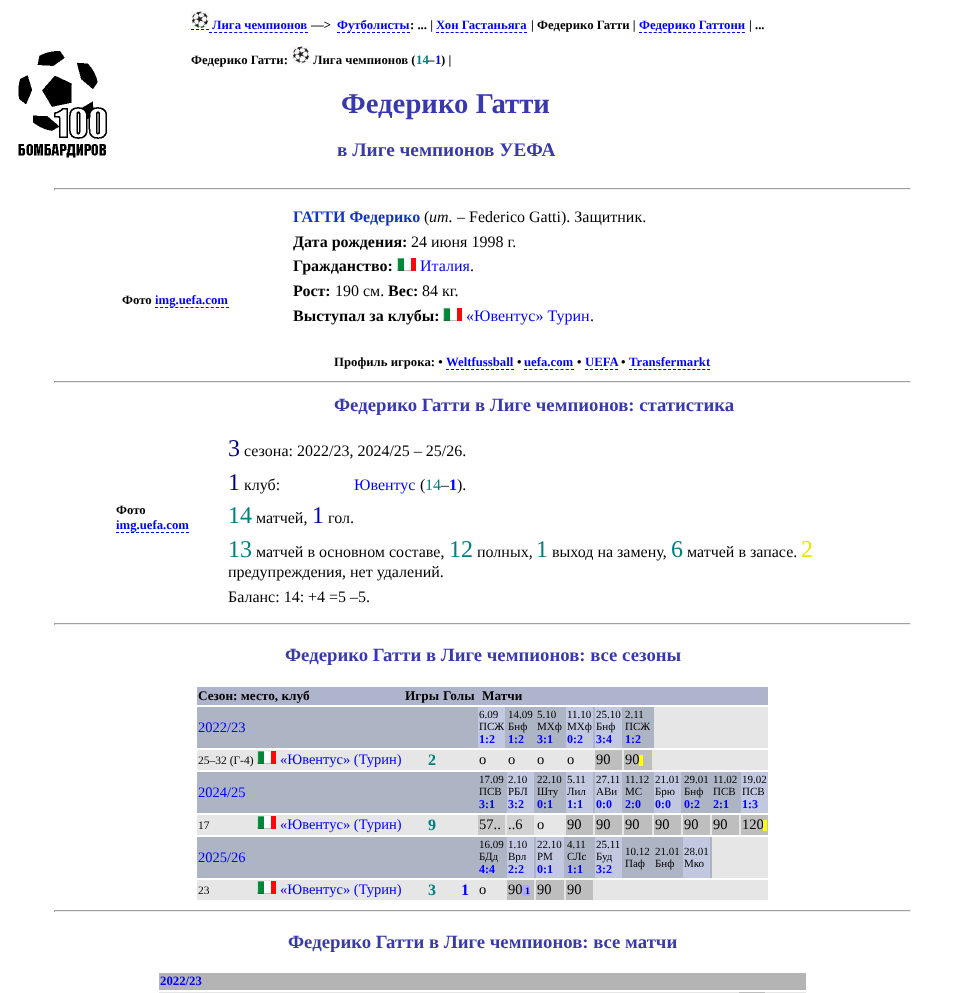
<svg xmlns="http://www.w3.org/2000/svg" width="965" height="993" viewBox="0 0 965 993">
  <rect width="100%" height="100%" fill="rgb(255,255,255)"/>
  <image x="18" y="51" width="89" height="107" href="pic1.png"/>
  <image x="191" y="11" width="18" height="18" href="pic2.png"/>
  <text x="212" y="29" font-family="Liberation Serif" font-size="12.75" font-weight="bold" fill="rgb(0,0,255)">Лига чемпионов</text>
  <path d="M191 29.5H209" fill="none" stroke="rgb(0,0,255)" stroke-dasharray="3 2"/>
  <path d="M209 32.5H308" fill="none" stroke="rgb(0,0,255)" stroke-dasharray="3 2.05"/>
  <text x="311" y="29" font-family="Liberation Serif" font-size="12.75" font-weight="bold" fill="rgb(0,0,0)">—&gt;</text>
  <text x="337" y="29" font-family="Liberation Serif" font-size="12.75" font-weight="bold" fill="rgb(0,0,255)">Футболисты</text>
  <path d="M337 32.5H410" fill="none" stroke="rgb(0,0,255)" stroke-dasharray="3 2"/>
  <text x="410" y="29" font-family="Liberation Serif" font-size="12.75" font-weight="bold" fill="rgb(0,0,0)">: ... |</text>
  <text x="436" y="29" font-family="Liberation Serif" font-size="12.75" font-weight="bold" fill="rgb(0,0,255)">Хон Гастаньяга</text>
  <path d="M436 32.5H527" fill="none" stroke="rgb(0,0,255)" stroke-dasharray="3 1.89"/>
  <text x="531" y="29" font-family="Liberation Serif" font-size="12.75" font-weight="bold" fill="rgb(0,0,0)">| Федерико Гатти |</text>
  <text x="639" y="29" font-family="Liberation Serif" font-size="12.75" font-weight="bold" fill="rgb(0,0,255)">Федерико Гаттони</text>
  <path d="M639 32.5H745" fill="none" stroke="rgb(0,0,255)" stroke-dasharray="3 1.9"/>
  <g font-family="Liberation Serif" font-size="12.75" font-weight="bold" fill="rgb(0,0,0)">
    <text x="749" y="29">| ...</text>
    <text x="191" y="64">Федерико Гатти:</text>
  </g>
  <image x="292" y="46" width="18" height="18" href="pic2.png"/>
  <text x="313" y="64" font-family="Liberation Serif" font-size="12.75" font-weight="bold" fill="rgb(0,0,0)">Лига чемпионов (</text>
  <text x="416" y="64" font-family="Liberation Serif" font-size="12.75" font-weight="bold" fill="rgb(0,127,127)">14</text>
  <text x="428" y="64" font-family="Liberation Serif" font-size="12.75" font-weight="bold" fill="rgb(0,0,0)">–</text>
  <text x="435" y="64" font-family="Liberation Serif" font-size="12.75" font-weight="bold" fill="rgb(0,0,255)">1</text>
  <text x="441" y="64" font-family="Liberation Serif" font-size="12.75" font-weight="bold" fill="rgb(0,0,0)">) |</text>
  <text x="341" y="113" font-family="Liberation Serif" font-size="28.75" font-weight="bold" fill="rgb(57,57,172)">Федерико Гатти</text>
  <text x="337" y="156" font-family="Liberation Serif" font-size="19.25" font-weight="bold" fill="rgb(57,57,172)">в Лиге чемпионов УЕФА</text>
  <rect x="54" y="188" width="857" height="1" fill="rgb(159,159,159)"/>
  <rect x="910" y="188" width="1" height="2" fill="rgb(238,238,238)"/>
  <rect x="54" y="189" width="857" height="1" fill="rgb(238,238,238)"/>
  <rect x="54" y="188" width="1" height="2" fill="rgb(159,159,159)"/>
  <text x="122" y="304" font-family="Liberation Serif" font-size="12.75" font-weight="bold" fill="rgb(0,0,0)">Фото</text>
  <text x="155" y="304" font-family="Liberation Serif" font-size="12.75" font-weight="bold" fill="rgb(0,0,255)">img.uefa.com</text>
  <path d="M155 307.5H229" fill="none" stroke="rgb(0,0,255)" stroke-dasharray="3 2.07"/>
  <text x="293" y="222" font-family="Liberation Serif" font-size="16" font-weight="bold" fill="rgb(20,50,200)">ГАТТИ Федерико</text>
  <text x="424" y="222" font-family="Liberation Serif" font-size="16" fill="rgb(0,0,0)">(</text>
  <text x="429" y="222" font-family="Liberation Serif" font-size="16" font-style="italic" fill="rgb(0,0,0)">ит.</text>
  <text x="457" y="222" font-family="Liberation Serif" font-size="16" fill="rgb(0,0,0)">– Federico Gatti). Защитник.</text>
  <text x="293" y="247" font-family="Liberation Serif" font-size="16" font-weight="bold" fill="rgb(0,0,0)">Дата рождения:</text>
  <text x="411" y="247" font-family="Liberation Serif" font-size="16" fill="rgb(0,0,0)">24 июня 1998 г.</text>
  <text x="293" y="271" font-family="Liberation Serif" font-size="16" font-weight="bold" fill="rgb(0,0,0)">Гражданство:</text>
  <image x="397" y="258" width="19" height="13" href="pic3.png"/>
  <text x="420" y="271" font-family="Liberation Serif" font-size="16" fill="rgb(0,0,255)">Италия</text>
  <text x="470" y="271" font-family="Liberation Serif" font-size="16" fill="rgb(0,0,0)">.</text>
  <text x="293" y="296" font-family="Liberation Serif" font-size="16" font-weight="bold" fill="rgb(0,0,0)">Рост:</text>
  <text x="335" y="296" font-family="Liberation Serif" font-size="16" fill="rgb(0,0,0)">190 см.</text>
  <text x="388" y="296" font-family="Liberation Serif" font-size="16" font-weight="bold" fill="rgb(0,0,0)">Вес:</text>
  <text x="422" y="296" font-family="Liberation Serif" font-size="16" fill="rgb(0,0,0)">84 кг.</text>
  <text x="293" y="321" font-family="Liberation Serif" font-size="16" font-weight="bold" fill="rgb(0,0,0)">Выступал за клубы:</text>
  <image x="443" y="308" width="19" height="13" href="pic3.png"/>
  <text x="466" y="321" font-family="Liberation Serif" font-size="16" fill="rgb(0,0,255)">«Ювентус» Турин</text>
  <text x="590" y="321" font-family="Liberation Serif" font-size="16" fill="rgb(0,0,0)">.</text>
  <text x="334" y="366" font-family="Liberation Serif" font-size="12.75" font-weight="bold" fill="rgb(0,0,0)">Профиль игрока: •</text>
  <text x="446" y="366" font-family="Liberation Serif" font-size="12.75" font-weight="bold" fill="rgb(0,0,255)">Weltfussball</text>
  <path d="M446 369.5H514" fill="none" stroke="rgb(0,0,255)" stroke-dasharray="3 2"/>
  <text x="517" y="366" font-family="Liberation Serif" font-size="12.75" font-weight="bold" fill="rgb(0,0,0)">•</text>
  <text x="524" y="366" font-family="Liberation Serif" font-size="12.75" font-weight="bold" fill="rgb(0,0,255)">uefa.com</text>
  <path d="M524 369.5H574" fill="none" stroke="rgb(0,0,255)" stroke-dasharray="3 2.22"/>
  <text x="577" y="366" font-family="Liberation Serif" font-size="12.75" font-weight="bold" fill="rgb(0,0,0)">•</text>
  <text x="585" y="366" font-family="Liberation Serif" font-size="12.75" font-weight="bold" fill="rgb(0,0,255)">UEFA</text>
  <path d="M585 369.5H618" fill="none" stroke="rgb(0,0,255)" stroke-dasharray="3 2"/>
  <text x="621" y="366" font-family="Liberation Serif" font-size="12.75" font-weight="bold" fill="rgb(0,0,0)">•</text>
  <text x="629" y="366" font-family="Liberation Serif" font-size="12.75" font-weight="bold" fill="rgb(0,0,255)">Transfermarkt</text>
  <path d="M629 369.5H710" fill="none" stroke="rgb(0,0,255)" stroke-dasharray="3 1.88"/>
  <rect x="54" y="381" width="857" height="1" fill="rgb(159,159,159)"/>
  <rect x="910" y="381" width="1" height="2" fill="rgb(238,238,238)"/>
  <rect x="54" y="382" width="857" height="1" fill="rgb(238,238,238)"/>
  <rect x="54" y="381" width="1" height="2" fill="rgb(159,159,159)"/>
  <text x="116" y="514" font-family="Liberation Serif" font-size="12.75" font-weight="bold" fill="rgb(0,0,0)">Фото</text>
  <text x="116" y="529" font-family="Liberation Serif" font-size="12.75" font-weight="bold" fill="rgb(0,0,255)">img.uefa.com</text>
  <path d="M116 532.5H189" fill="none" stroke="rgb(0,0,255)" stroke-dasharray="3 2"/>
  <text x="334" y="411" font-family="Liberation Serif" font-size="18.75" font-weight="bold" fill="rgb(57,57,172)">Федерико Гатти в Лиге чемпионов: статистика</text>
  <text x="228" y="456" font-family="Liberation Serif" font-size="24" fill="rgb(0,0,127)">3</text>
  <text x="244" y="456" font-family="Liberation Serif" font-size="16" fill="rgb(0,0,0)">сезона: 2022/23, 2024/25 – 25/26.</text>
  <text x="228" y="490" font-family="Liberation Serif" font-size="24" fill="rgb(0,0,127)">1</text>
  <text x="244" y="490" font-family="Liberation Serif" font-size="16" fill="rgb(0,0,0)">клуб:</text>
  <text x="354" y="490" font-family="Liberation Serif" font-size="16" fill="rgb(0,0,255)">Ювентус</text>
  <text x="420" y="490" font-family="Liberation Serif" font-size="16" fill="rgb(0,0,0)">(</text>
  <text x="425" y="490" font-family="Liberation Serif" font-size="16" fill="rgb(0,127,127)">14</text>
  <text x="441" y="490" font-family="Liberation Serif" font-size="16" fill="rgb(0,0,0)">–</text>
  <text x="449" y="490" font-family="Liberation Serif" font-size="16" font-weight="bold" fill="rgb(0,0,255)">1</text>
  <text x="457" y="490" font-family="Liberation Serif" font-size="16" fill="rgb(0,0,0)">).</text>
  <text x="228" y="523" font-family="Liberation Serif" font-size="24" fill="rgb(0,127,127)">14</text>
  <text x="256" y="523" font-family="Liberation Serif" font-size="16" fill="rgb(0,0,0)">матчей,</text>
  <text x="312" y="523" font-family="Liberation Serif" font-size="24" fill="rgb(0,0,200)">1</text>
  <text x="328" y="523" font-family="Liberation Serif" font-size="16" fill="rgb(0,0,0)">гол.</text>
  <text x="228" y="557" font-family="Liberation Serif" font-size="24" fill="rgb(0,127,127)">13</text>
  <text x="256" y="557" font-family="Liberation Serif" font-size="16" fill="rgb(0,0,0)">матчей в основном составе,</text>
  <text x="449" y="557" font-family="Liberation Serif" font-size="24" fill="rgb(0,127,127)">12</text>
  <text x="477" y="557" font-family="Liberation Serif" font-size="16" fill="rgb(0,0,0)">полных,</text>
  <text x="536" y="557" font-family="Liberation Serif" font-size="24" fill="rgb(0,127,127)">1</text>
  <text x="552" y="557" font-family="Liberation Serif" font-size="16" fill="rgb(0,0,0)">выход на замену,</text>
  <text x="671" y="557" font-family="Liberation Serif" font-size="24" fill="rgb(0,127,127)">6</text>
  <text x="687" y="557" font-family="Liberation Serif" font-size="16" fill="rgb(0,0,0)">матчей в запасе.</text>
  <text x="801" y="557" font-family="Liberation Serif" font-size="24" fill="rgb(230,230,0)">2</text>
  <g font-family="Liberation Serif" font-size="16" fill="rgb(0,0,0)">
    <text>
      <tspan x="228" y="577">предупреждения, нет удалений.</tspan>
      <tspan x="228" y="602">Баланс: 14: +4 =5 –5.</tspan>
    </text>
  </g>
  <rect x="54" y="623" width="857" height="1" fill="rgb(159,159,159)"/>
  <rect x="910" y="623" width="1" height="2" fill="rgb(238,238,238)"/>
  <rect x="54" y="624" width="857" height="1" fill="rgb(238,238,238)"/>
  <rect x="54" y="623" width="1" height="2" fill="rgb(159,159,159)"/>
  <text x="285" y="661" font-family="Liberation Serif" font-size="18.75" font-weight="bold" fill="rgb(57,57,172)">Федерико Гатти в Лиге чемпионов: все сезоны</text>
  <rect x="197" y="687" width="571" height="18" fill="rgb(173,180,203)"/>
  <g font-family="Liberation Serif" font-size="13.25" font-weight="bold" fill="rgb(0,0,0)">
    <text x="198" y="700">Сезон: место, клуб</text>
    <text x="405" y="700">Игры</text>
    <text x="443" y="700">Голы</text>
    <text x="482" y="700">Матчи</text>
  </g>
  <rect x="197" y="707" width="457" height="41" fill="rgb(173,180,195)"/>
  <text x="198" y="732" font-family="Liberation Serif" font-size="14.5" fill="rgb(0,0,255)">2022/23</text>
  <rect x="478" y="707" width="27" height="41" fill="rgb(193,200,223)"/>
  <g font-family="Liberation Serif" font-size="11" fill="rgb(0,0,0)">
    <text>
      <tspan x="479" y="718">6.09</tspan>
      <tspan x="479" y="730">ПСЖ</tspan>
    </text>
  </g>
  <text x="479" y="743" font-family="Liberation Serif" font-size="12" font-weight="bold" fill="rgb(0,0,255)">1:2</text>
  <g font-family="Liberation Serif" font-size="11" fill="rgb(0,0,0)">
    <text>
      <tspan x="508" y="718">14.09</tspan>
      <tspan x="508" y="730">Бнф</tspan>
    </text>
  </g>
  <text x="508" y="743" font-family="Liberation Serif" font-size="12" font-weight="bold" fill="rgb(0,0,255)">1:2</text>
  <g font-family="Liberation Serif" font-size="11" fill="rgb(0,0,0)">
    <text>
      <tspan x="537" y="718">5.10</tspan>
      <tspan x="537" y="730">МХф</tspan>
    </text>
  </g>
  <text x="537" y="743" font-family="Liberation Serif" font-size="12" font-weight="bold" fill="rgb(0,0,255)">3:1</text>
  <rect x="566" y="707" width="27" height="41" fill="rgb(193,200,223)"/>
  <g font-family="Liberation Serif" font-size="11" fill="rgb(0,0,0)">
    <text>
      <tspan x="567" y="718">11.10</tspan>
      <tspan x="567" y="730">МХф</tspan>
    </text>
  </g>
  <text x="567" y="743" font-family="Liberation Serif" font-size="12" font-weight="bold" fill="rgb(0,0,255)">0:2</text>
  <rect x="595" y="707" width="27" height="41" fill="rgb(193,200,223)"/>
  <g font-family="Liberation Serif" font-size="11" fill="rgb(0,0,0)">
    <text>
      <tspan x="596" y="718">25.10</tspan>
      <tspan x="596" y="730">Бнф</tspan>
    </text>
  </g>
  <text x="596" y="743" font-family="Liberation Serif" font-size="12" font-weight="bold" fill="rgb(0,0,255)">3:4</text>
  <g font-family="Liberation Serif" font-size="11" fill="rgb(0,0,0)">
    <text>
      <tspan x="625" y="718">2.11</tspan>
      <tspan x="625" y="730">ПСЖ</tspan>
    </text>
  </g>
  <text x="625" y="743" font-family="Liberation Serif" font-size="12" font-weight="bold" fill="rgb(0,0,255)">1:2</text>
  <rect x="654" y="707" width="114" height="41" fill="rgb(230,230,230)"/>
  <rect x="197" y="750" width="571" height="20" fill="rgb(230,230,230)"/>
  <text x="198" y="764" font-family="Liberation Serif" font-size="11.5" fill="rgb(0,0,0)">25–32 (Г-4)</text>
  <image x="257" y="751" width="19" height="13" href="pic3.png"/>
  <text x="280" y="764" font-family="Liberation Serif" font-size="14.5" fill="rgb(0,0,255)">«Ювентус» (Турин)</text>
  <text x="428" y="765" font-family="Liberation Serif" font-size="16" font-weight="bold" fill="rgb(0,127,127)">2</text>
  <g font-family="Liberation Serif" font-size="14.5" fill="rgb(0,0,0)">
    <text x="479" y="764">о</text>
    <text x="508" y="764">о</text>
    <text x="537" y="764">о</text>
    <text x="567" y="764">о</text>
  </g>
  <rect x="595" y="750" width="27" height="20" fill="rgb(190,190,190)"/>
  <text x="596" y="764" font-family="Liberation Serif" font-size="14.5" fill="rgb(0,0,0)">90</text>
  <rect x="624" y="750" width="28" height="20" fill="rgb(190,190,190)"/>
  <text x="625" y="764" font-family="Liberation Serif" font-size="14.5" fill="rgb(0,0,0)">90</text>
  <rect x="639" y="755" width="4" height="11" fill="rgb(255,255,0)"/>
  <rect x="197" y="772" width="544" height="41" fill="rgb(173,180,195)"/>
  <text x="198" y="797" font-family="Liberation Serif" font-size="14.5" fill="rgb(0,0,255)">2024/25</text>
  <g font-family="Liberation Serif" font-size="11" fill="rgb(0,0,0)">
    <text>
      <tspan x="479" y="783">17.09</tspan>
      <tspan x="479" y="795">ПСВ</tspan>
    </text>
  </g>
  <text x="479" y="808" font-family="Liberation Serif" font-size="12" font-weight="bold" fill="rgb(0,0,255)">3:1</text>
  <rect x="507" y="772" width="27" height="41" fill="rgb(193,200,223)"/>
  <g font-family="Liberation Serif" font-size="11" fill="rgb(0,0,0)">
    <text>
      <tspan x="508" y="783">2.10</tspan>
      <tspan x="508" y="795">РБЛ</tspan>
    </text>
  </g>
  <text x="508" y="808" font-family="Liberation Serif" font-size="12" font-weight="bold" fill="rgb(0,0,255)">3:2</text>
  <g font-family="Liberation Serif" font-size="11" fill="rgb(0,0,0)">
    <text>
      <tspan x="537" y="783">22.10</tspan>
      <tspan x="537" y="795">Шту</tspan>
    </text>
  </g>
  <text x="537" y="808" font-family="Liberation Serif" font-size="12" font-weight="bold" fill="rgb(0,0,255)">0:1</text>
  <rect x="566" y="772" width="27" height="41" fill="rgb(193,200,223)"/>
  <g font-family="Liberation Serif" font-size="11" fill="rgb(0,0,0)">
    <text>
      <tspan x="567" y="783">5.11</tspan>
      <tspan x="567" y="795">Лил</tspan>
    </text>
  </g>
  <text x="567" y="808" font-family="Liberation Serif" font-size="12" font-weight="bold" fill="rgb(0,0,255)">1:1</text>
  <rect x="595" y="772" width="27" height="41" fill="rgb(193,200,223)"/>
  <g font-family="Liberation Serif" font-size="11" fill="rgb(0,0,0)">
    <text>
      <tspan x="596" y="783">27.11</tspan>
      <tspan x="596" y="795">АВи</tspan>
    </text>
  </g>
  <text x="596" y="808" font-family="Liberation Serif" font-size="12" font-weight="bold" fill="rgb(0,0,255)">0:0</text>
  <g font-family="Liberation Serif" font-size="11" fill="rgb(0,0,0)">
    <text>
      <tspan x="625" y="783">11.12</tspan>
      <tspan x="625" y="795">МС</tspan>
    </text>
  </g>
  <text x="625" y="808" font-family="Liberation Serif" font-size="12" font-weight="bold" fill="rgb(0,0,255)">2:0</text>
  <rect x="654" y="772" width="27" height="41" fill="rgb(193,200,223)"/>
  <g font-family="Liberation Serif" font-size="11" fill="rgb(0,0,0)">
    <text>
      <tspan x="655" y="783">21.01</tspan>
      <tspan x="655" y="795">Брю</tspan>
    </text>
  </g>
  <text x="655" y="808" font-family="Liberation Serif" font-size="12" font-weight="bold" fill="rgb(0,0,255)">0:0</text>
  <g font-family="Liberation Serif" font-size="11" fill="rgb(0,0,0)">
    <text>
      <tspan x="684" y="783">29.01</tspan>
      <tspan x="684" y="795">Бнф</tspan>
    </text>
  </g>
  <text x="684" y="808" font-family="Liberation Serif" font-size="12" font-weight="bold" fill="rgb(0,0,255)">0:2</text>
  <g font-family="Liberation Serif" font-size="11" fill="rgb(0,0,0)">
    <text>
      <tspan x="713" y="783">11.02</tspan>
      <tspan x="713" y="795">ПСВ</tspan>
    </text>
  </g>
  <text x="713" y="808" font-family="Liberation Serif" font-size="12" font-weight="bold" fill="rgb(0,0,255)">2:1</text>
  <rect x="741" y="772" width="27" height="41" fill="rgb(193,200,223)"/>
  <g font-family="Liberation Serif" font-size="11" fill="rgb(0,0,0)">
    <text>
      <tspan x="742" y="783">19.02</tspan>
      <tspan x="742" y="795">ПСВ</tspan>
    </text>
  </g>
  <text x="742" y="808" font-family="Liberation Serif" font-size="12" font-weight="bold" fill="rgb(0,0,255)">1:3</text>
  <rect x="197" y="815" width="544" height="20" fill="rgb(230,230,230)"/>
  <text x="198" y="829" font-family="Liberation Serif" font-size="11.5" fill="rgb(0,0,0)">17</text>
  <image x="257" y="816" width="19" height="13" href="pic3.png"/>
  <text x="280" y="829" font-family="Liberation Serif" font-size="14.5" fill="rgb(0,0,255)">«Ювентус» (Турин)</text>
  <text x="428" y="830" font-family="Liberation Serif" font-size="16" font-weight="bold" fill="rgb(0,127,127)">9</text>
  <rect x="478" y="815" width="27" height="20" fill="rgb(200,200,200)"/>
  <text x="479" y="829" font-family="Liberation Serif" font-size="14.5" fill="rgb(0,0,0)">57..</text>
  <rect x="507" y="815" width="27" height="20" fill="rgb(210,210,210)"/>
  <g font-family="Liberation Serif" font-size="14.5" fill="rgb(0,0,0)">
    <text x="508" y="829">..6</text>
    <text x="537" y="829">о</text>
  </g>
  <rect x="566" y="815" width="27" height="20" fill="rgb(190,190,190)"/>
  <text x="567" y="829" font-family="Liberation Serif" font-size="14.5" fill="rgb(0,0,0)">90</text>
  <rect x="595" y="815" width="27" height="20" fill="rgb(190,190,190)"/>
  <text x="596" y="829" font-family="Liberation Serif" font-size="14.5" fill="rgb(0,0,0)">90</text>
  <rect x="624" y="815" width="28" height="20" fill="rgb(190,190,190)"/>
  <text x="625" y="829" font-family="Liberation Serif" font-size="14.5" fill="rgb(0,0,0)">90</text>
  <rect x="654" y="815" width="27" height="20" fill="rgb(190,190,190)"/>
  <text x="655" y="829" font-family="Liberation Serif" font-size="14.5" fill="rgb(0,0,0)">90</text>
  <rect x="683" y="815" width="27" height="20" fill="rgb(190,190,190)"/>
  <text x="684" y="829" font-family="Liberation Serif" font-size="14.5" fill="rgb(0,0,0)">90</text>
  <rect x="712" y="815" width="27" height="20" fill="rgb(190,190,190)"/>
  <text x="713" y="829" font-family="Liberation Serif" font-size="14.5" fill="rgb(0,0,0)">90</text>
  <rect x="741" y="815" width="27" height="20" fill="rgb(190,190,190)"/>
  <text x="742" y="829" font-family="Liberation Serif" font-size="14.5" fill="rgb(0,0,0)">120</text>
  <rect x="763" y="820" width="4" height="11" fill="rgb(255,255,0)"/>
  <rect x="197" y="837" width="515" height="41" fill="rgb(173,180,195)"/>
  <text x="198" y="862" font-family="Liberation Serif" font-size="14.5" fill="rgb(0,0,255)">2025/26</text>
  <g font-family="Liberation Serif" font-size="11" fill="rgb(0,0,0)">
    <text>
      <tspan x="479" y="848">16.09</tspan>
      <tspan x="479" y="860">БДд</tspan>
    </text>
  </g>
  <text x="479" y="873" font-family="Liberation Serif" font-size="12" font-weight="bold" fill="rgb(0,0,255)">4:4</text>
  <rect x="507" y="837" width="27" height="41" fill="rgb(193,200,223)"/>
  <g font-family="Liberation Serif" font-size="11" fill="rgb(0,0,0)">
    <text>
      <tspan x="508" y="848">1.10</tspan>
      <tspan x="508" y="860">Врл</tspan>
    </text>
  </g>
  <text x="508" y="873" font-family="Liberation Serif" font-size="12" font-weight="bold" fill="rgb(0,0,255)">2:2</text>
  <rect x="536" y="837" width="28" height="41" fill="rgb(193,200,223)"/>
  <g font-family="Liberation Serif" font-size="11" fill="rgb(0,0,0)">
    <text>
      <tspan x="537" y="848">22.10</tspan>
      <tspan x="537" y="860">РМ</tspan>
    </text>
  </g>
  <text x="537" y="873" font-family="Liberation Serif" font-size="12" font-weight="bold" fill="rgb(0,0,255)">0:1</text>
  <g font-family="Liberation Serif" font-size="11" fill="rgb(0,0,0)">
    <text>
      <tspan x="567" y="848">4.11</tspan>
      <tspan x="567" y="860">СЛс</tspan>
    </text>
  </g>
  <text x="567" y="873" font-family="Liberation Serif" font-size="12" font-weight="bold" fill="rgb(0,0,255)">1:1</text>
  <rect x="595" y="837" width="27" height="41" fill="rgb(193,200,223)"/>
  <g font-family="Liberation Serif" font-size="11" fill="rgb(0,0,0)">
    <text>
      <tspan x="596" y="848">25.11</tspan>
      <tspan x="596" y="860">Буд</tspan>
    </text>
  </g>
  <text x="596" y="873" font-family="Liberation Serif" font-size="12" font-weight="bold" fill="rgb(0,0,255)">3:2</text>
  <g font-family="Liberation Serif" font-size="11" fill="rgb(0,0,0)">
    <text>
      <tspan x="625" y="855">10.12</tspan>
      <tspan x="625" y="867">Паф</tspan>
    </text>
    <text>
      <tspan x="655" y="855">21.01</tspan>
      <tspan x="655" y="867">Бнф</tspan>
    </text>
  </g>
  <rect x="683" y="837" width="27" height="41" fill="rgb(193,200,223)"/>
  <g font-family="Liberation Serif" font-size="11" fill="rgb(0,0,0)">
    <text>
      <tspan x="684" y="855">28.01</tspan>
      <tspan x="684" y="867">Мко</tspan>
    </text>
  </g>
  <rect x="712" y="837" width="56" height="41" fill="rgb(230,230,230)"/>
  <rect x="197" y="880" width="571" height="20" fill="rgb(230,230,230)"/>
  <text x="198" y="894" font-family="Liberation Serif" font-size="11.5" fill="rgb(0,0,0)">23</text>
  <image x="257" y="881" width="19" height="13" href="pic3.png"/>
  <text x="280" y="894" font-family="Liberation Serif" font-size="14.5" fill="rgb(0,0,255)">«Ювентус» (Турин)</text>
  <text x="428" y="895" font-family="Liberation Serif" font-size="16" font-weight="bold" fill="rgb(0,127,127)">3</text>
  <text x="461" y="895" font-family="Liberation Serif" font-size="16" font-weight="bold" fill="rgb(0,0,255)">1</text>
  <text x="479" y="894" font-family="Liberation Serif" font-size="14.5" fill="rgb(0,0,0)">о</text>
  <rect x="507" y="880" width="27" height="20" fill="rgb(190,190,190)"/>
  <text x="508" y="894" font-family="Liberation Serif" font-size="14.5" fill="rgb(0,0,0)">90</text>
  <rect x="522" y="885" width="8" height="11" fill="rgb(170,170,255)"/>
  <text x="525" y="894" font-family="Liberation Serif" font-size="10" font-weight="bold" fill="rgb(0,0,127)">1</text>
  <rect x="536" y="880" width="28" height="20" fill="rgb(190,190,190)"/>
  <text x="537" y="894" font-family="Liberation Serif" font-size="14.5" fill="rgb(0,0,0)">90</text>
  <rect x="566" y="880" width="27" height="20" fill="rgb(190,190,190)"/>
  <text x="567" y="894" font-family="Liberation Serif" font-size="14.5" fill="rgb(0,0,0)">90</text>
  <rect x="54" y="910" width="857" height="1" fill="rgb(159,159,159)"/>
  <rect x="910" y="910" width="1" height="2" fill="rgb(238,238,238)"/>
  <rect x="54" y="911" width="857" height="1" fill="rgb(238,238,238)"/>
  <rect x="54" y="910" width="1" height="2" fill="rgb(159,159,159)"/>
  <text x="288" y="948" font-family="Liberation Serif" font-size="18.75" font-weight="bold" fill="rgb(57,57,172)">Федерико Гатти в Лиге чемпионов: все матчи</text>
  <rect x="159" y="973" width="647" height="17" fill="rgb(180,180,180)"/>
  <text x="160" y="985" font-family="Liberation Serif" font-size="12.75" font-weight="bold" fill="rgb(0,0,255)">2022/23</text>
  <rect x="159" y="992" width="647" height="1" fill="rgb(230,230,230)"/>
  <rect x="739" y="992" width="26" height="1" fill="rgb(190,190,190)"/>
</svg>
